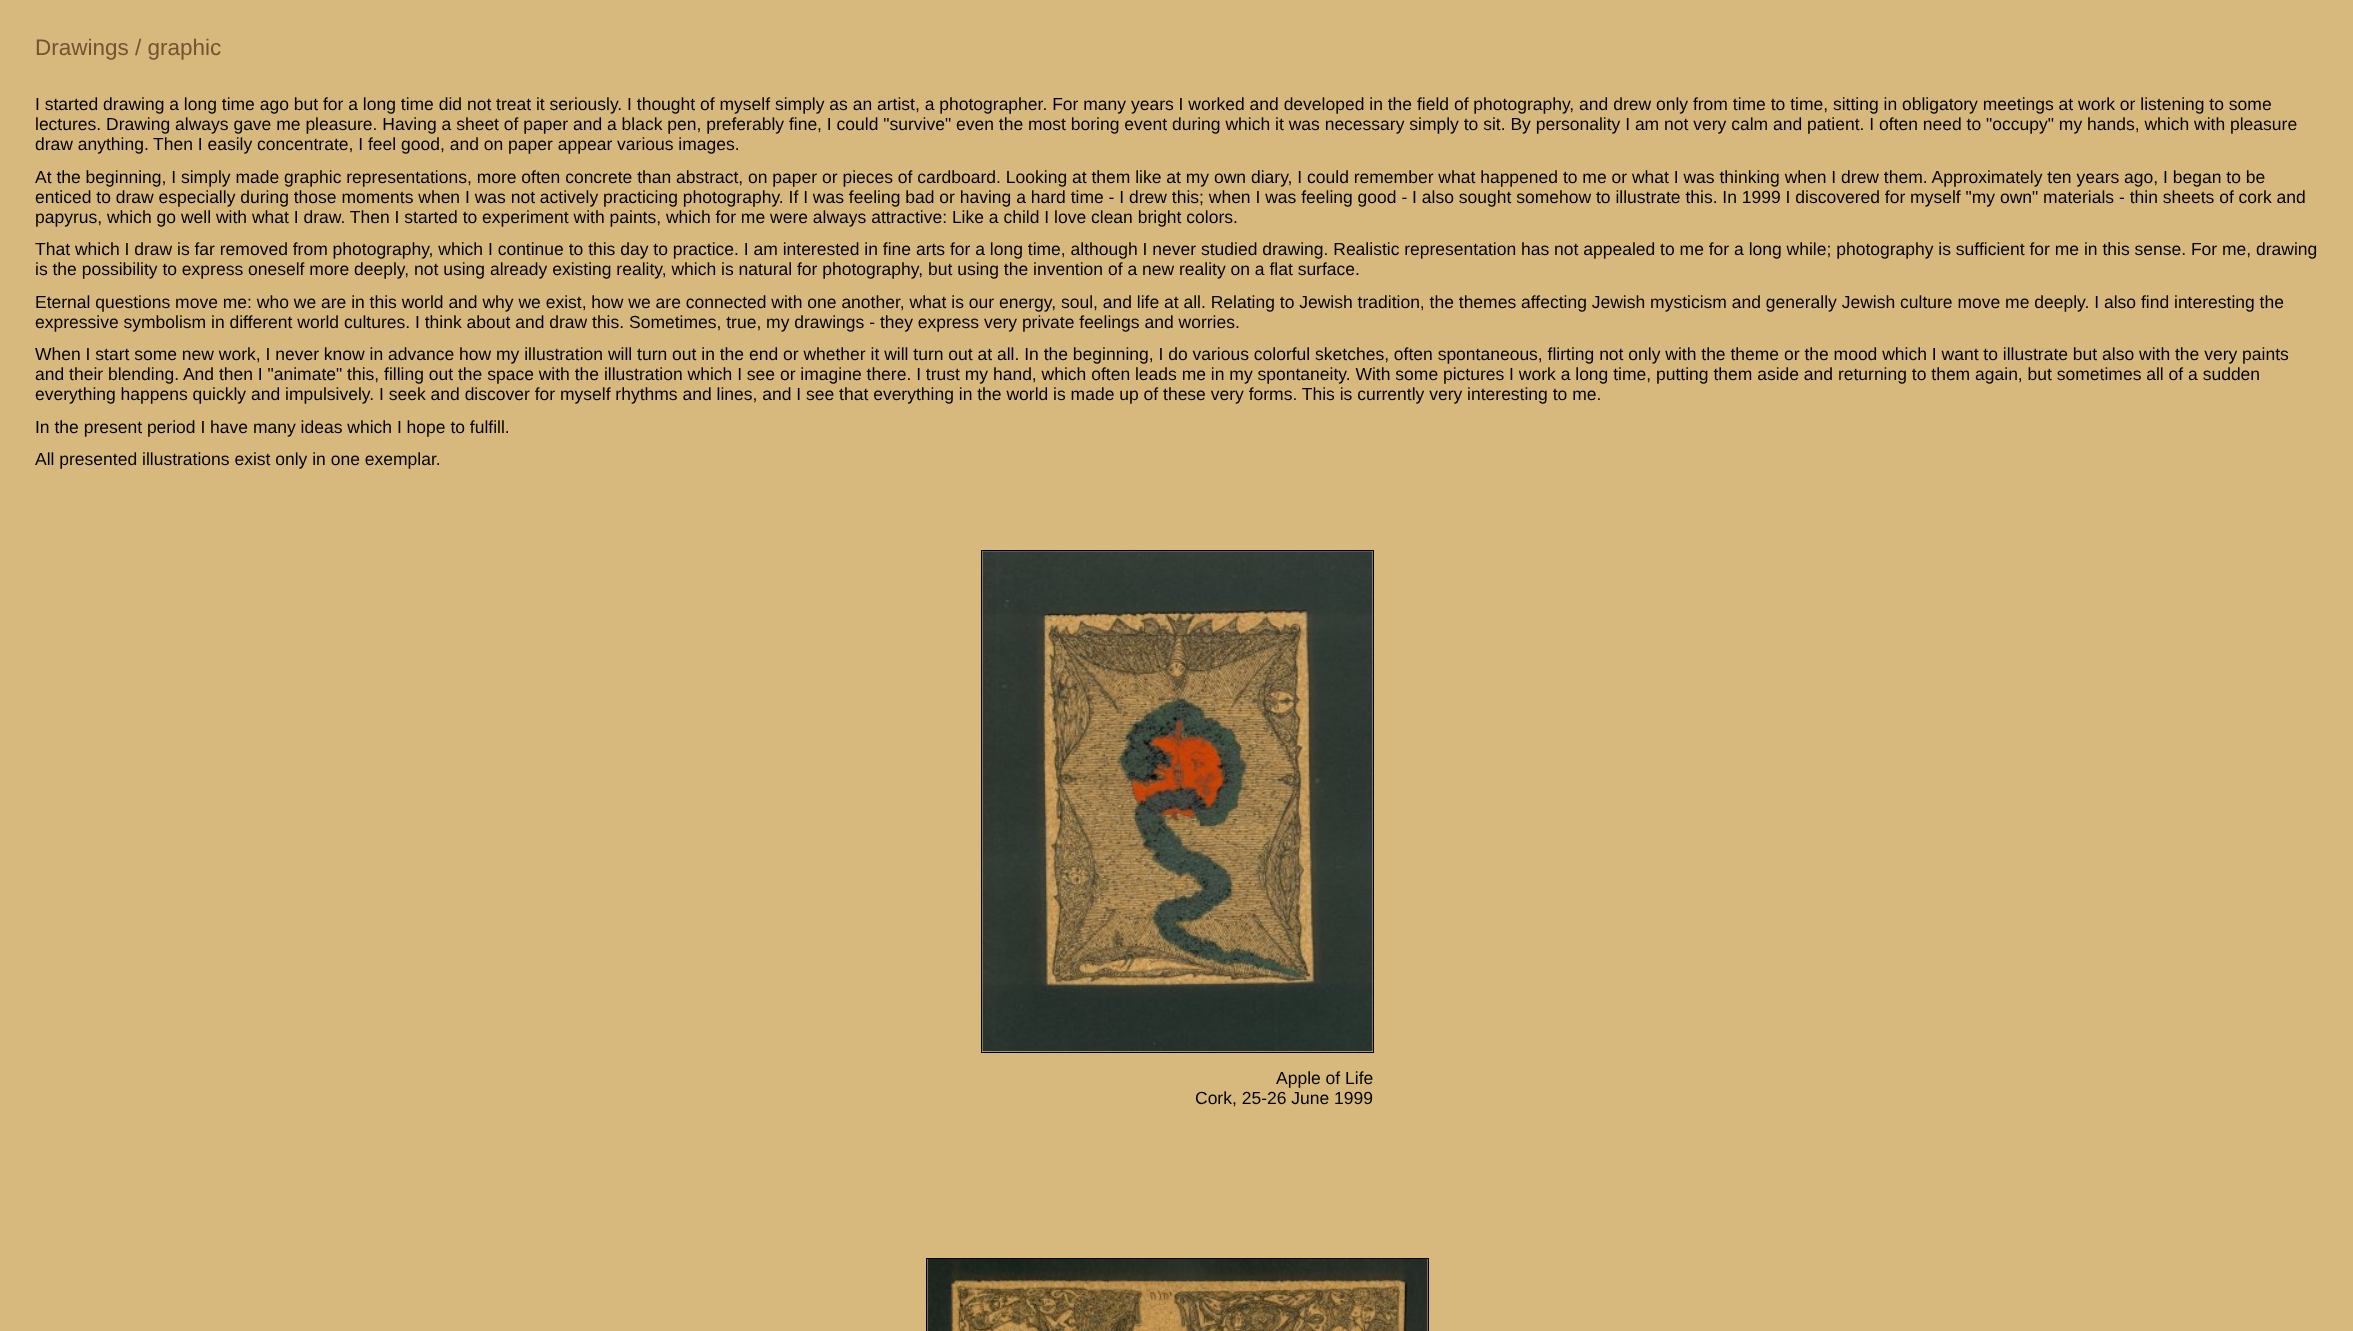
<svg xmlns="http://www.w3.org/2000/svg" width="2353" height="1331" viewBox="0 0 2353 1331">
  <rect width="100%" height="100%" fill="rgb(215,185,126)"/>
  <text x="35" y="55" font-family="Liberation Sans" font-size="22.5" fill="rgb(118,82,48)">Drawings / graphic</text>
  <g font-family="Liberation Sans" font-size="17.5" fill="rgb(0,0,0)">
    <text>
      <tspan x="35" y="110">I started drawing a long time ago but for a long time did not treat it seriously. I thought of myself simply as an artist, a photographer. For many years I worked and developed in the field of photography, and drew only from time to time, sitting in obligatory meetings at work or listening to some</tspan>
      <tspan x="35" y="130">lectures. Drawing always gave me pleasure. Having a sheet of paper and a black pen, preferably fine, I could "survive" even the most boring event during which it was necessary simply to sit. By personality I am not very calm and patient. I often need to "occupy" my hands, which with pleasure</tspan>
      <tspan x="35" y="150">draw anything.</tspan>
    </text>
    <text x="153" y="150">Then I easily concentrate, I feel good, and on paper appear various images.</text>
    <text>
      <tspan x="35" y="183">At the beginning, I simply made graphic representations, more often concrete than abstract, on paper or pieces of cardboard. Looking at them like at my own diary, I could remember what happened to me or what I was thinking when I drew them. Approximately ten years ago, I began to be</tspan>
      <tspan x="35" y="203">enticed to draw especially during those moments when I was not actively practicing photography. If I was feeling bad or having a hard time - I drew this; when I was feeling good - I also sought somehow to illustrate this. In 1999 I discovered for myself "my own" materials - thin sheets of cork and</tspan>
      <tspan x="35" y="223">papyrus, which go well with what I draw. Then I started to experiment with paints, which for me were always attractive: Like a child I love clean bright colors.</tspan>
      <tspan x="35" y="255">That which I draw is far removed from photography, which I continue to this day to practice. I am interested in fine arts for a long time, although I never studied drawing. Realistic representation has not appealed to me for a long while; photography is sufficient for me in this sense. For me, drawing</tspan>
      <tspan x="35" y="275">is the possibility to express oneself more deeply, not using already existing reality, which is natural for photography, but using the invention of a new reality on a flat surface.</tspan>
      <tspan x="35" y="308">Eternal questions move me: who we are in this world and why we exist, how we are connected with one another, what is our energy, soul, and life at all. Relating to Jewish tradition, the themes affecting Jewish mysticism and generally Jewish culture move me deeply. I also find interesting the</tspan>
      <tspan x="35" y="328">expressive symbolism in different world cultures. I think about and draw this. Sometimes, true, my drawings - they express very private feelings and worries.</tspan>
      <tspan x="35" y="360">When I start some new work, I never know in advance how my illustration will turn out in the end or whether it will turn out at all. In the beginning, I do various colorful sketches, often spontaneous, flirting not only with the theme or the mood which I want to illustrate but also with the very paints</tspan>
      <tspan x="35" y="380">and their blending. And then I "animate" this, filling out the space with the illustration which I see or imagine there. I trust my hand, which often leads me in my spontaneity. With some pictures I work a long time, putting them aside and returning to them again, but sometimes all of a sudden</tspan>
      <tspan x="35" y="400">everything happens quickly and impulsively. I seek and discover for myself rhythms and lines, and I see that everything in the world is made up of these very forms. This is currently very interesting to me.</tspan>
      <tspan x="35" y="433">In the present period I have many ideas which I hope to fulfill.</tspan>
      <tspan x="35" y="465">All presented illustrations exist only in one exemplar.</tspan>
    </text>
  </g>
  <rect x="981.5" y="550.5" width="392" height="502" fill="none" stroke="rgb(0,0,0)"/>
  <image x="982" y="551" width="391" height="501" href="pic1.png"/>
  <g font-family="Liberation Sans" font-size="17.5" fill="rgb(0,0,0)">
    <text x="1276" y="1084">Apple of Life</text>
    <text x="1195" y="1104">Cork, 25-26 June 1999</text>
  </g>
  <rect x="926.5" y="1258.5" width="502" height="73" fill="none" stroke="rgb(0,0,0)"/>
  <image x="927" y="1258" width="501" height="73" href="pic2.png"/>
</svg>
